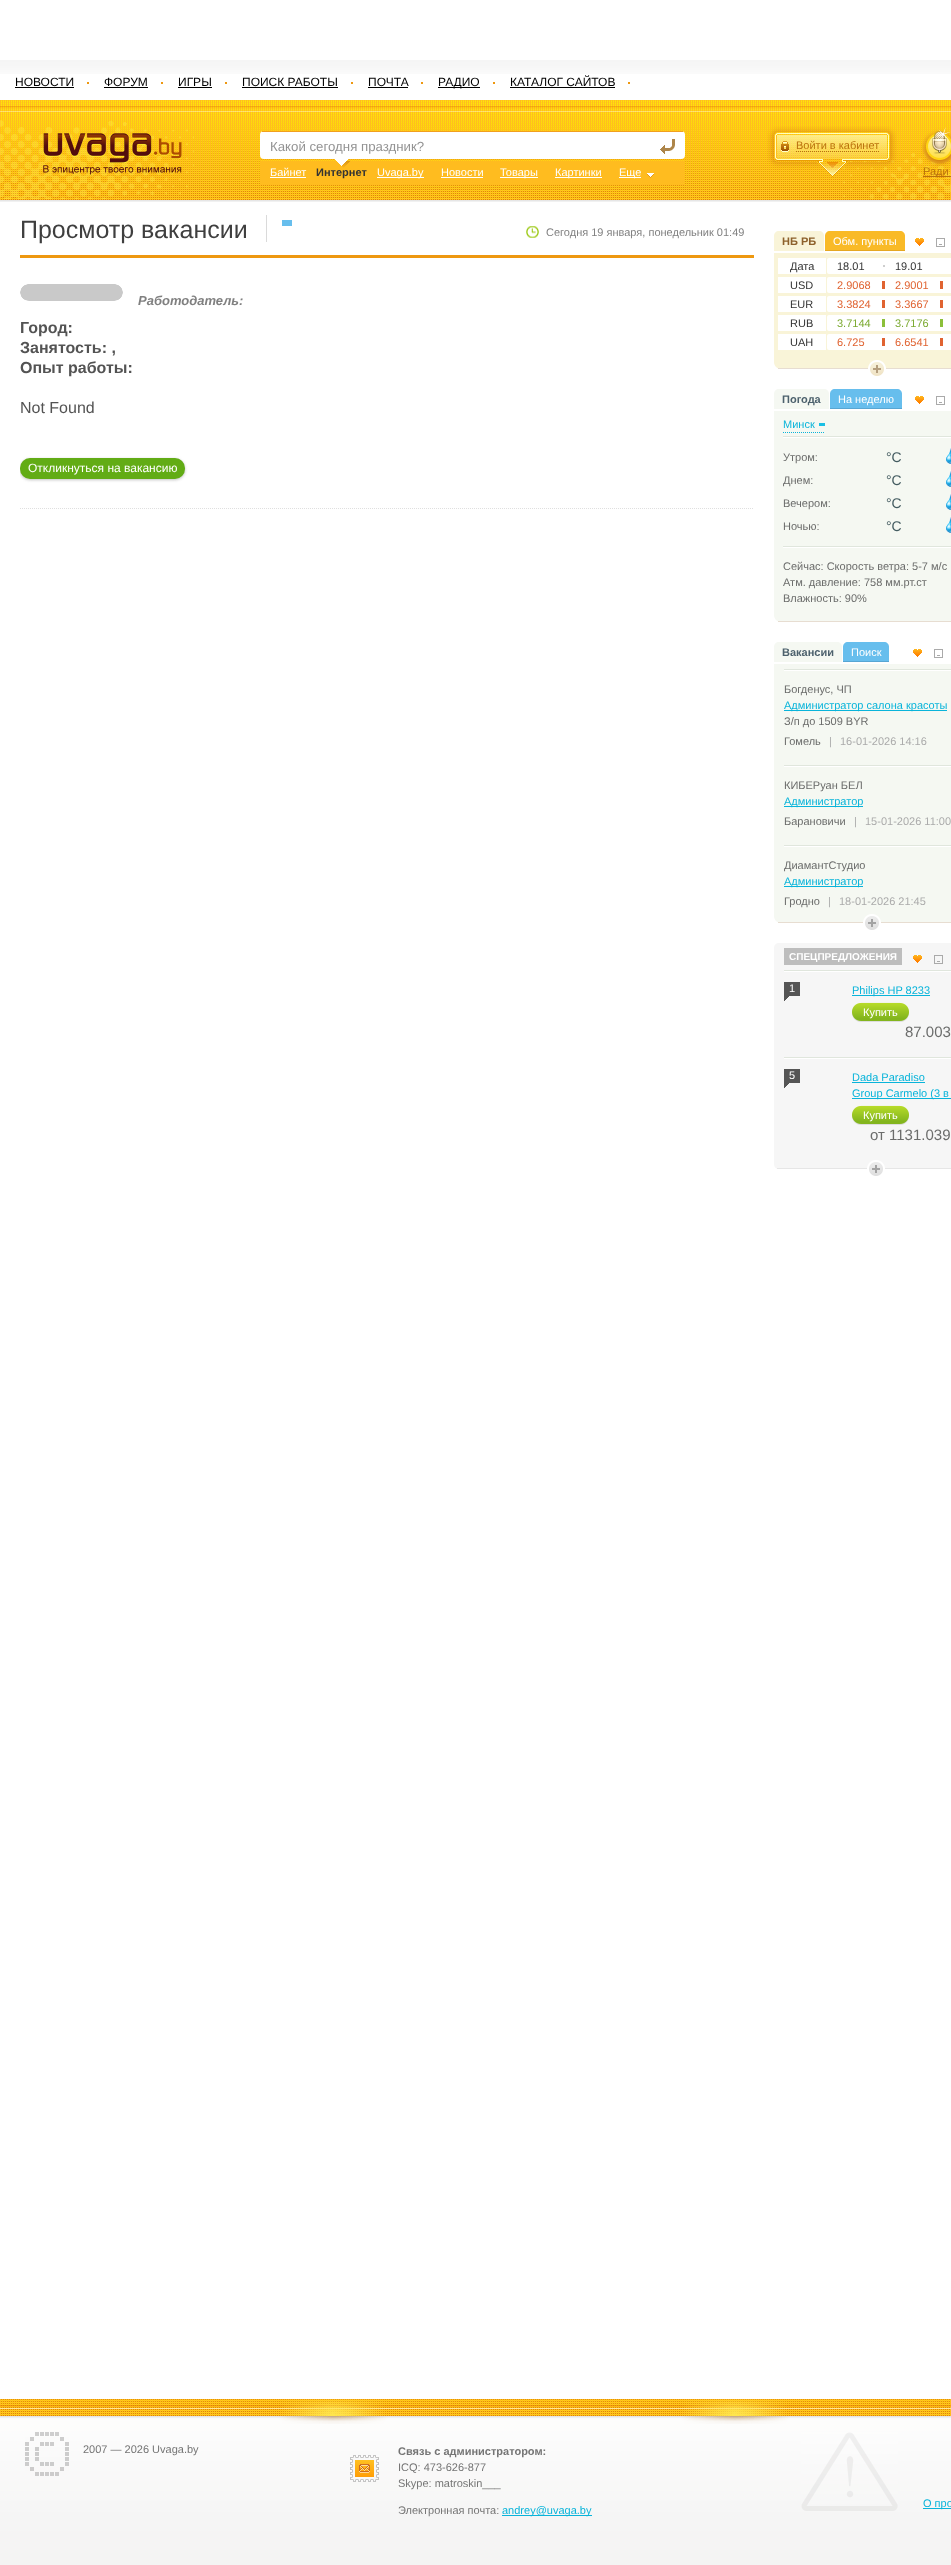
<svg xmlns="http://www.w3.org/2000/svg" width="951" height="2565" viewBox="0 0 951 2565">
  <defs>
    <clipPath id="clip1"><rect x="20" y="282" width="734" height="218"/></clipPath>
  </defs>
  <rect width="100%" height="100%" fill="rgb(255,255,255)"/>
  <image x="0" y="60" width="951" height="14" href="pic1.png"/>
  <rect x="87" y="82" width="2" height="2" fill="rgb(238,152,16)"/>
  <text x="15" y="86" font-family="Liberation Sans" font-size="12" fill="rgb(0,0,0)">НОВОСТИ</text>
  <rect x="15" y="87" width="59" height="1" fill="rgb(0,0,0)"/>
  <rect x="161" y="82" width="2" height="2" fill="rgb(238,152,16)"/>
  <text x="104" y="86" font-family="Liberation Sans" font-size="12" fill="rgb(0,0,0)">ФОРУМ</text>
  <rect x="104" y="87" width="44" height="1" fill="rgb(0,0,0)"/>
  <rect x="225" y="82" width="2" height="2" fill="rgb(238,152,16)"/>
  <text x="178" y="86" font-family="Liberation Sans" font-size="12" fill="rgb(0,0,0)">ИГРЫ</text>
  <rect x="178" y="87" width="34" height="1" fill="rgb(0,0,0)"/>
  <rect x="351" y="82" width="2" height="2" fill="rgb(238,152,16)"/>
  <text x="242" y="86" font-family="Liberation Sans" font-size="12" fill="rgb(0,0,0)">ПОИСК РАБОТЫ</text>
  <rect x="242" y="87" width="96" height="1" fill="rgb(0,0,0)"/>
  <rect x="421" y="82" width="2" height="2" fill="rgb(238,152,16)"/>
  <text x="368" y="86" font-family="Liberation Sans" font-size="12" fill="rgb(0,0,0)">ПОЧТА</text>
  <rect x="368" y="87" width="40" height="1" fill="rgb(0,0,0)"/>
  <rect x="493" y="82" width="2" height="2" fill="rgb(238,152,16)"/>
  <rect x="438" y="87" width="42" height="1" fill="rgb(0,0,0)"/>
  <text x="438" y="86" font-family="Liberation Sans" font-size="12" fill="rgb(0,0,0)">РАДИО</text>
  <rect x="628" y="82" width="2" height="2" fill="rgb(238,152,16)"/>
  <text x="510" y="86" font-family="Liberation Sans" font-size="12" fill="rgb(0,0,0)">КАТАЛОГ САЙТОВ</text>
  <rect x="510" y="87" width="105" height="1" fill="rgb(0,0,0)"/>
  <image x="0" y="100" width="951" height="102" href="pic2.png"/>
  <image x="0" y="118" width="194" height="81" href="pic3.png"/>
  <image x="843" y="151" width="108" height="48" href="pic4.png"/>
  <image x="43" y="133" width="139" height="42" href="pic5.png"/>
  <rect x="260" y="131" width="425" height="28" rx="4" fill="rgb(255,255,255)"/>
  <rect x="262" y="131" width="421" height="1" fill="rgb(241,160,31)"/>
  <text x="270" y="151" font-family="Liberation Sans" font-size="13.25" fill="rgb(147,147,147)">Какой сегодня праздник?</text>
  <image x="660" y="139" width="15" height="15" href="pic6.png"/>
  <rect x="261" y="161" width="423" height="24" fill="rgb(255,188,31)"/>
  <text x="270" y="176" font-family="Liberation Sans" font-size="11" fill="rgb(255,255,255)">Байнет</text>
  <rect x="270" y="177" width="36" height="1" fill="rgb(255,255,255)"/>
  <image x="335" y="159" width="15" height="9" href="pic7.png"/>
  <text x="316" y="176" font-family="Liberation Sans" font-size="11" font-weight="bold" fill="rgb(51,51,51)">Интернет</text>
  <rect x="377" y="177" width="47" height="1" fill="rgb(255,255,255)"/>
  <g font-family="Liberation Sans" font-size="11" fill="rgb(255,255,255)">
    <text x="377" y="176">Uvaga.by</text>
    <text x="441" y="176">Новости</text>
  </g>
  <rect x="441" y="177" width="42" height="1" fill="rgb(255,255,255)"/>
  <rect x="500" y="177" width="38" height="1" fill="rgb(255,255,255)"/>
  <text x="500" y="176" font-family="Liberation Sans" font-size="11" fill="rgb(255,255,255)">Товары</text>
  <rect x="555" y="177" width="47" height="1" fill="rgb(255,255,255)"/>
  <text x="555" y="176" font-family="Liberation Sans" font-size="11" fill="rgb(255,255,255)">Картинки</text>
  <image x="647" y="173" width="7" height="5" href="pic8.png"/>
  <rect x="619" y="177" width="22" height="1" fill="rgb(255,255,255)"/>
  <text x="619" y="176" font-family="Liberation Sans" font-size="11" fill="rgb(255,255,255)">Еще</text>
  <image x="767" y="126" width="130" height="51" href="pic9.png"/>
  <path d="M796 151.5H879" fill="none" stroke="rgb(186,114,12)" stroke-dasharray="1 1"/>
  <text x="796" y="149" font-family="Liberation Sans" font-size="11" fill="rgb(186,114,12)">Войти в кабинет</text>
  <image x="921" y="127" width="30" height="40" href="pic10.png"/>
  <rect x="923" y="176" width="28" height="1" fill="rgb(186,114,12)"/>
  <text x="923" y="175" font-family="Liberation Sans" font-size="11" fill="rgb(186,114,12)">Ради</text>
  <rect x="20" y="255" width="734" height="3" fill="rgb(238,152,16)"/>
  <text x="20" y="238" font-family="Liberation Sans" font-size="25" fill="rgb(63,63,63)">Просмотр вакансии</text>
  <rect x="266" y="215" width="1" height="27" fill="rgb(218,218,218)"/>
  <rect x="282" y="220" width="10" height="6" fill="rgb(103,190,237)"/>
  <image x="526" y="226" width="13" height="12" href="pic11.png"/>
  <text x="546" y="236" font-family="Liberation Sans" font-size="11" fill="rgb(128,128,128)">Сегодня 19 января, понедельник 01:49</text>
  <path d="M20 508.5H754" fill="none" stroke="rgb(223,223,223)" stroke-dasharray="1 1"/>
  <image x="20" y="284" width="103" height="17" href="pic12.png"/>
  <text x="138" y="305" font-family="Liberation Sans" font-size="13" font-weight="bold" font-style="italic" fill="rgb(128,128,128)">Работодатель:</text>
  <g font-family="Liberation Sans" font-size="16" font-weight="bold" fill="rgb(83,83,83)">
    <text>
      <tspan x="20" y="333">Город:</tspan>
      <tspan x="20" y="353">Занятость: ,</tspan>
      <tspan x="20" y="373">Опыт работы:</tspan>
    </text>
  </g>
  <text x="20" y="413" font-family="Liberation Sans" font-size="16" fill="rgb(83,83,83)">Not Found</text>
  <g clip-path="url(#clip1)">
    <rect x="20" y="459" width="165" height="21" rx="10" fill="rgb(193,193,193)" filter="blur(1.5px)"/>
  </g>
  <rect x="20" y="458" width="165" height="21" rx="10" fill="rgb(98,172,21)"/>
  <text x="28" y="472" font-family="Liberation Sans" font-size="12" fill="rgb(255,255,255)">Откликнуться на вакансию</text>
  <path d="M779 231H819C822 231 824 233 824 236V251H774V236C774 233 776 231 779 231Z" fill="rgb(249,244,216)"/>
  <text x="782" y="245" font-family="Liberation Sans" font-size="11" font-weight="bold" fill="rgb(141,97,44)">НБ РБ</text>
  <path d="M830 231H900C903 231 905 233 905 236V251H825V236C825 233 827 231 830 231Z" fill="rgb(249,186,39)"/>
  <rect x="825" y="250" width="80" height="1" fill="rgb(228,167,34)"/>
  <text x="833" y="245" font-family="Liberation Sans" font-size="11" fill="rgb(255,255,255)">Обм. пункты</text>
  <image x="915" y="238" width="9" height="8" href="pic13.png"/>
  <image x="936" y="238" width="9" height="9" href="pic14.png"/>
  <path d="M774 253H951C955 253 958 256 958 260V362C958 366 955 369 951 369H781C777 369 774 366 774 362Z" fill="rgb(249,244,216)"/>
  <rect x="778" y="368" width="173" height="1" fill="rgb(231,221,209)"/>
  <rect x="778" y="258" width="48" height="16" fill="rgb(255,255,255)"/>
  <text x="790" y="270" font-family="Liberation Sans" font-size="11" fill="rgb(51,51,51)">Дата</text>
  <rect x="827" y="258" width="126" height="16" rx="2" fill="rgb(255,255,255)"/>
  <rect x="883" y="265" width="2" height="2" fill="rgb(206,206,206)"/>
  <g font-family="Liberation Sans" font-size="11" fill="rgb(51,51,51)">
    <text x="837" y="270">18.01</text>
    <text x="895" y="270">19.01</text>
  </g>
  <rect x="778" y="277" width="48" height="16" fill="rgb(255,255,255)"/>
  <text x="790" y="289" font-family="Liberation Sans" font-size="11" fill="rgb(51,51,51)">USD</text>
  <rect x="827" y="277" width="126" height="16" rx="2" fill="rgb(255,255,255)"/>
  <rect x="882" y="281" width="3" height="8" fill="rgb(224,99,49)"/>
  <text x="837" y="289" font-family="Liberation Sans" font-size="11" fill="rgb(224,99,49)">2.9068</text>
  <rect x="940" y="281" width="3" height="8" fill="rgb(224,99,49)"/>
  <text x="895" y="289" font-family="Liberation Sans" font-size="11" fill="rgb(224,99,49)">2.9001</text>
  <rect x="778" y="296" width="48" height="16" fill="rgb(255,255,255)"/>
  <text x="790" y="308" font-family="Liberation Sans" font-size="11" fill="rgb(51,51,51)">EUR</text>
  <rect x="827" y="296" width="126" height="16" rx="2" fill="rgb(255,255,255)"/>
  <rect x="882" y="300" width="3" height="8" fill="rgb(224,99,49)"/>
  <text x="837" y="308" font-family="Liberation Sans" font-size="11" fill="rgb(224,99,49)">3.3824</text>
  <rect x="940" y="300" width="3" height="8" fill="rgb(224,99,49)"/>
  <text x="895" y="308" font-family="Liberation Sans" font-size="11" fill="rgb(224,99,49)">3.3667</text>
  <rect x="778" y="315" width="48" height="16" fill="rgb(255,255,255)"/>
  <text x="790" y="327" font-family="Liberation Sans" font-size="11" fill="rgb(51,51,51)">RUB</text>
  <rect x="827" y="315" width="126" height="16" rx="2" fill="rgb(255,255,255)"/>
  <rect x="882" y="319" width="3" height="8" fill="rgb(140,191,58)"/>
  <text x="837" y="327" font-family="Liberation Sans" font-size="11" fill="rgb(123,169,48)">3.7144</text>
  <rect x="940" y="319" width="3" height="8" fill="rgb(140,191,58)"/>
  <text x="895" y="327" font-family="Liberation Sans" font-size="11" fill="rgb(123,169,48)">3.7176</text>
  <rect x="778" y="334" width="48" height="16" fill="rgb(255,255,255)"/>
  <text x="790" y="346" font-family="Liberation Sans" font-size="11" fill="rgb(51,51,51)">UAH</text>
  <rect x="827" y="334" width="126" height="16" rx="2" fill="rgb(255,255,255)"/>
  <rect x="882" y="338" width="3" height="8" fill="rgb(224,99,49)"/>
  <text x="837" y="346" font-family="Liberation Sans" font-size="11" fill="rgb(224,99,49)">6.725</text>
  <rect x="940" y="338" width="3" height="8" fill="rgb(224,99,49)"/>
  <text x="895" y="346" font-family="Liberation Sans" font-size="11" fill="rgb(224,99,49)">6.6541</text>
  <image x="868" y="360" width="18" height="16" href="pic15.png"/>
  <path d="M779 389H824C827 389 829 391 829 394V409H774V394C774 391 776 389 779 389Z" fill="rgb(245,248,242)"/>
  <text x="782" y="403" font-family="Liberation Sans" font-size="11" font-weight="bold" fill="rgb(77,97,109)">Погода</text>
  <path d="M835 389H897C900 389 902 391 902 394V409H830V394C830 391 832 389 835 389Z" fill="rgb(103,190,237)"/>
  <rect x="830" y="408" width="72" height="1" fill="rgb(87,166,211)"/>
  <text x="838" y="403" font-family="Liberation Sans" font-size="11" fill="rgb(255,255,255)">На неделю</text>
  <image x="915" y="396" width="9" height="8" href="pic13.png"/>
  <image x="936" y="396" width="9" height="9" href="pic14.png"/>
  <path d="M774 411H951C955 411 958 414 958 418V615C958 619 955 622 951 622H781C777 622 774 619 774 615Z" fill="rgb(245,248,242)"/>
  <rect x="778" y="621" width="173" height="1" fill="rgb(231,221,209)"/>
  <rect x="819" y="423" width="6" height="3" fill="rgb(26,191,228)"/>
  <path d="M783 432.5H825" fill="none" stroke="rgb(9,180,218)" stroke-dasharray="1 1"/>
  <text x="783" y="428" font-family="Liberation Sans" font-size="11" fill="rgb(9,180,218)">Минск</text>
  <rect x="783" y="436" width="168" height="1" fill="rgb(224,230,221)"/>
  <rect x="783" y="547" width="168" height="1" fill="rgb(255,255,255)"/>
  <rect x="783" y="437" width="168" height="1" fill="rgb(255,255,255)"/>
  <rect x="783" y="546" width="168" height="1" fill="rgb(224,230,221)"/>
  <text x="783" y="461" font-family="Liberation Sans" font-size="11" fill="rgb(107,108,107)">Утром:</text>
  <text x="886" y="462" font-family="Liberation Sans" font-size="14" fill="rgb(67,91,96)">°C</text>
  <image x="946" y="448" width="5" height="16" href="pic16.png"/>
  <text x="783" y="484" font-family="Liberation Sans" font-size="11" fill="rgb(107,108,107)">Днем:</text>
  <text x="886" y="485" font-family="Liberation Sans" font-size="14" fill="rgb(67,91,96)">°C</text>
  <image x="946" y="471" width="5" height="16" href="pic16.png"/>
  <text x="783" y="507" font-family="Liberation Sans" font-size="11" fill="rgb(107,108,107)">Вечером:</text>
  <text x="886" y="508" font-family="Liberation Sans" font-size="14" fill="rgb(67,91,96)">°C</text>
  <image x="946" y="494" width="5" height="16" href="pic16.png"/>
  <text x="783" y="530" font-family="Liberation Sans" font-size="11" fill="rgb(107,108,107)">Ночью:</text>
  <text x="886" y="531" font-family="Liberation Sans" font-size="14" fill="rgb(67,91,96)">°C</text>
  <image x="946" y="517" width="5" height="16" href="pic16.png"/>
  <g font-family="Liberation Sans" font-size="11" fill="rgb(107,108,107)">
    <text>
      <tspan x="783" y="570">Сейчас: Скорость ветра: 5-7 м/c</tspan>
      <tspan x="783" y="586">Атм. давление: 758 мм.рт.ст</tspan>
      <tspan x="783" y="602">Влажность: 90%</tspan>
    </text>
  </g>
  <path d="M779 642H837C840 642 842 644 842 647V662H774V647C774 644 776 642 779 642Z" fill="rgb(245,248,242)"/>
  <text x="782" y="656" font-family="Liberation Sans" font-size="11" font-weight="bold" fill="rgb(77,97,109)">Вакансии</text>
  <path d="M848 642H884C887 642 889 644 889 647V662H843V647C843 644 845 642 848 642Z" fill="rgb(103,190,237)"/>
  <rect x="843" y="661" width="46" height="1" fill="rgb(87,166,211)"/>
  <text x="851" y="656" font-family="Liberation Sans" font-size="11" fill="rgb(255,255,255)">Поиск</text>
  <image x="913" y="649" width="9" height="8" href="pic13.png"/>
  <image x="934" y="649" width="9" height="9" href="pic14.png"/>
  <path d="M774 664H951C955 664 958 667 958 671V916C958 920 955 923 951 923H781C777 923 774 920 774 916Z" fill="rgb(245,248,242)"/>
  <rect x="778" y="922" width="173" height="1" fill="rgb(231,221,209)"/>
  <rect x="784" y="669" width="167" height="1" fill="rgb(224,230,221)"/>
  <rect x="784" y="670" width="167" height="1" fill="rgb(255,255,255)"/>
  <text x="784" y="693" font-family="Liberation Sans" font-size="11" fill="rgb(107,108,107)">Богденус, ЧП</text>
  <rect x="784" y="710" width="163" height="1" fill="rgb(9,180,218)"/>
  <text x="784" y="709" font-family="Liberation Sans" font-size="11" fill="rgb(9,180,218)">Администратор салона красоты</text>
  <g font-family="Liberation Sans" font-size="11" fill="rgb(107,108,107)">
    <text>
      <tspan x="784" y="725">З/п до 1509 BYR</tspan>
      <tspan x="784" y="745">Гомель</tspan>
    </text>
  </g>
  <g font-family="Liberation Sans" font-size="11" fill="rgb(171,171,171)">
    <text x="829" y="745">|</text>
    <text x="840" y="745">16-01-2026 14:16</text>
  </g>
  <rect x="784" y="765" width="167" height="1" fill="rgb(224,230,221)"/>
  <rect x="784" y="766" width="167" height="1" fill="rgb(255,255,255)"/>
  <text x="784" y="789" font-family="Liberation Sans" font-size="11" fill="rgb(107,108,107)">КИБЕРуан БЕЛ</text>
  <rect x="784" y="806" width="79" height="1" fill="rgb(9,180,218)"/>
  <text x="784" y="805" font-family="Liberation Sans" font-size="11" fill="rgb(9,180,218)">Администратор</text>
  <text x="784" y="825" font-family="Liberation Sans" font-size="11" fill="rgb(107,108,107)">Барановичи</text>
  <g font-family="Liberation Sans" font-size="11" fill="rgb(171,171,171)">
    <text x="854" y="825">|</text>
    <text x="865" y="825">15-01-2026 11:00</text>
  </g>
  <rect x="784" y="845" width="167" height="1" fill="rgb(224,230,221)"/>
  <rect x="784" y="846" width="167" height="1" fill="rgb(255,255,255)"/>
  <text x="784" y="869" font-family="Liberation Sans" font-size="11" fill="rgb(107,108,107)">ДиамантСтудио</text>
  <rect x="784" y="886" width="79" height="1" fill="rgb(9,180,218)"/>
  <text x="784" y="885" font-family="Liberation Sans" font-size="11" fill="rgb(9,180,218)">Администратор</text>
  <text x="784" y="905" font-family="Liberation Sans" font-size="11" fill="rgb(107,108,107)">Гродно</text>
  <g font-family="Liberation Sans" font-size="11" fill="rgb(171,171,171)">
    <text x="828" y="905">|</text>
    <text x="839" y="905">18-01-2026 21:45</text>
  </g>
  <image x="863" y="914" width="18" height="16" href="pic17.png"/>
  <path d="M779 943H951C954 943 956 945 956 948V970H774V948C774 945 776 943 779 943Z" fill="rgb(246,246,246)"/>
  <rect x="784" y="948" width="118" height="17" fill="rgb(189,189,189)"/>
  <text x="789" y="960" font-family="Liberation Sans" font-size="10" font-weight="bold" fill="rgb(255,255,255)">СПЕЦПРЕДЛОЖЕНИЯ</text>
  <image x="913" y="955" width="9" height="8" href="pic18.png"/>
  <image x="934" y="955" width="9" height="9" href="pic19.png"/>
  <path d="M774 970H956V1164C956 1167 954 1169 951 1169H779C776 1169 774 1167 774 1164Z" fill="rgb(246,246,246)"/>
  <rect x="777" y="1168" width="174" height="1" fill="rgb(230,230,230)"/>
  <rect x="784" y="970" width="167" height="1" fill="rgb(224,230,221)"/>
  <rect x="784" y="971" width="167" height="1" fill="rgb(255,255,255)"/>
  <rect x="784" y="982" width="16" height="14" fill="rgb(85,85,85)"/>
  <text x="789" y="992" font-family="Liberation Sans" font-size="11" fill="rgb(255,255,255)">1</text>
  <image x="784" y="996" width="5" height="5" href="pic20.png"/>
  <rect x="852" y="995" width="78" height="1" fill="rgb(9,180,218)"/>
  <text x="852" y="994" font-family="Liberation Sans" font-size="11" fill="rgb(9,180,218)">Philips HP 8233</text>
  <image x="852" y="1002" width="57" height="20" href="pic21.png"/>
  <text x="863" y="1016" font-family="Liberation Sans" font-size="11" fill="rgb(255,255,255)">Купить</text>
  <text x="905" y="1037" font-family="Liberation Sans" font-size="15" fill="rgb(107,108,107)">87.003</text>
  <rect x="784" y="1057" width="167" height="1" fill="rgb(224,230,221)"/>
  <rect x="784" y="1058" width="167" height="1" fill="rgb(255,255,255)"/>
  <rect x="784" y="1069" width="16" height="14" fill="rgb(85,85,85)"/>
  <text x="789" y="1079" font-family="Liberation Sans" font-size="11" fill="rgb(255,255,255)">5</text>
  <image x="784" y="1083" width="5" height="5" href="pic20.png"/>
  <text x="852" y="1081" font-family="Liberation Sans" font-size="11" fill="rgb(9,180,218)">Dada Paradiso</text>
  <rect x="852" y="1082" width="73" height="1" fill="rgb(9,180,218)"/>
  <rect x="852" y="1098" width="99" height="1" fill="rgb(9,180,218)"/>
  <text x="852" y="1097" font-family="Liberation Sans" font-size="11" fill="rgb(9,180,218)">Group Carmelo (3 в</text>
  <image x="852" y="1105" width="57" height="20" href="pic21.png"/>
  <text x="863" y="1119" font-family="Liberation Sans" font-size="11" fill="rgb(255,255,255)">Купить</text>
  <text x="870" y="1140" font-family="Liberation Sans" font-size="15" fill="rgb(107,108,107)">от 1131.039</text>
  <image x="867" y="1160" width="18" height="16" href="pic22.png"/>
  <image x="0" y="2399" width="951" height="166" href="pic23.png"/>
  <image x="25" y="2432" width="44" height="44" href="pic24.png"/>
  <text x="83" y="2453" font-family="Liberation Sans" font-size="11" fill="rgb(117,117,117)">2007 — 2026 Uvaga.by</text>
  <image x="350" y="2455" width="29" height="27" href="pic25.png"/>
  <text x="398" y="2455" font-family="Liberation Sans" font-size="11" font-weight="bold" fill="rgb(117,117,117)">Связь с администратором:</text>
  <g font-family="Liberation Sans" font-size="11" fill="rgb(117,117,117)">
    <text>
      <tspan x="398" y="2471">ICQ: 473-626-877</tspan>
      <tspan x="398" y="2487">Skype: matroskin___</tspan>
    </text>
    <text x="398" y="2514">Электронная почта:</text>
  </g>
  <rect x="502" y="2515" width="90" height="1" fill="rgb(9,180,218)"/>
  <text x="502" y="2514" font-family="Liberation Sans" font-size="11" fill="rgb(9,180,218)">andrey@uvaga.by</text>
  <image x="801" y="2432" width="97" height="79" href="pic26.png"/>
  <rect x="923" y="2508" width="28" height="1" fill="rgb(9,180,218)"/>
  <text x="923" y="2507" font-family="Liberation Sans" font-size="11" fill="rgb(9,180,218)">О про</text>
</svg>
